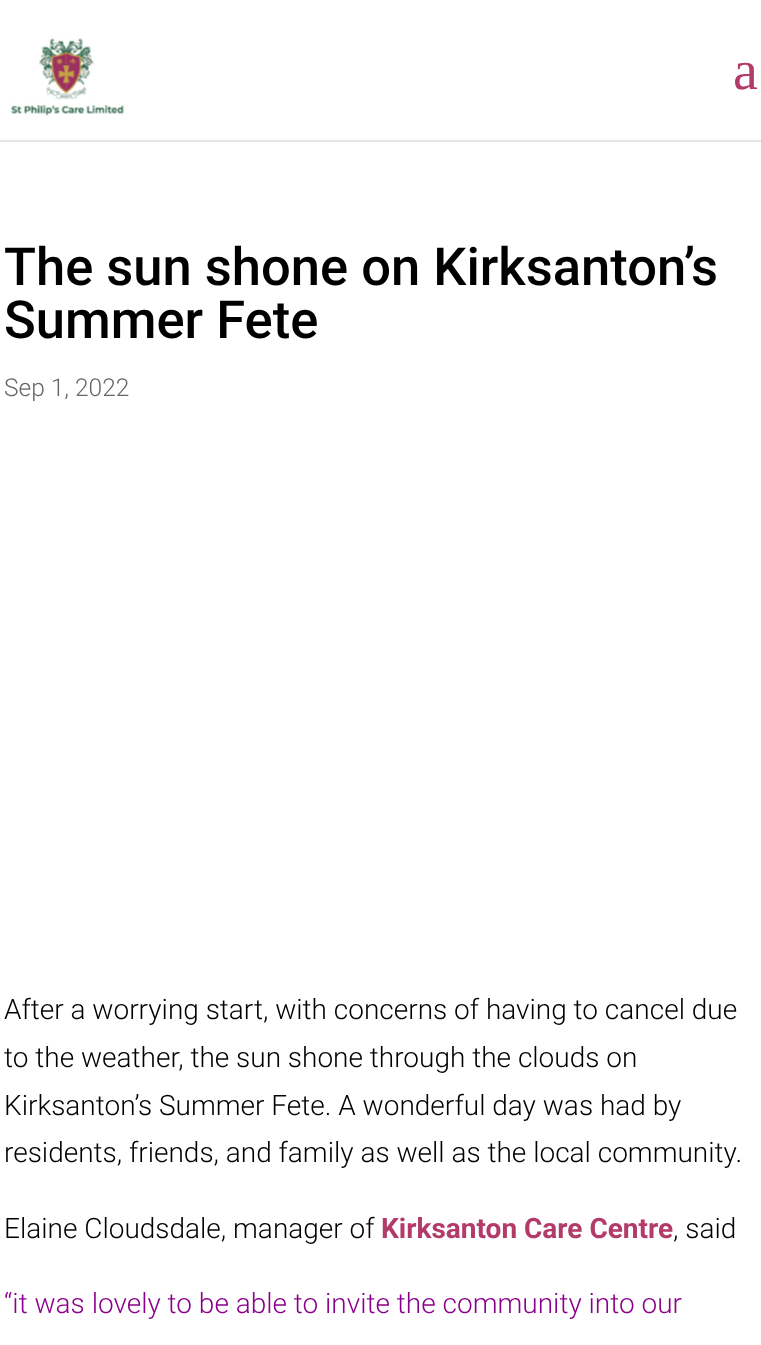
<svg xmlns="http://www.w3.org/2000/svg" width="761" height="1345" viewBox="0 0 761 1345">
  <rect width="100%" height="100%" fill="rgb(255,255,255)"/>
  <rect x="0" y="140" width="761" height="2" fill="rgb(230,230,230)"/>
  <image x="10" y="38" width="114" height="78" href="pic1.png"/>
  <text x="733" y="89" font-family="Liberation Serif" font-size="56" fill="rgb(179,59,104)">a</text>
  <g font-family="Roboto" font-size="52.5" font-weight="500" fill="rgb(0,0,0)">
    <text>
      <tspan x="4" y="285">The sun shone on Kirksanton’s</tspan>
      <tspan x="4" y="338">Summer Fete</tspan>
    </text>
  </g>
  <text x="4" y="396" font-family="Roboto" font-size="24.5" font-weight="300" fill="rgb(102,102,102)">Sep 1, 2022</text>
  <g font-family="Roboto" font-size="28" font-weight="300" fill="rgb(0,0,0)">
    <text>
      <tspan x="4" y="1019">After a worrying start, with concerns of having to cancel due</tspan>
      <tspan x="4" y="1067">to the weather, the sun shone through the clouds on</tspan>
      <tspan x="4" y="1115">Kirksanton’s Summer Fete. A wonderful day was had by</tspan>
      <tspan x="4" y="1162">residents, friends, and family as well as the local community.</tspan>
    </text>
    <text x="4" y="1238">Elaine Cloudsdale, manager of</text>
  </g>
  <text x="381" y="1238" font-family="Roboto" font-size="28" font-weight="bold" fill="rgb(179,59,104)">Kirksanton Care Centre</text>
  <text x="673" y="1238" font-family="Roboto" font-size="28" font-weight="300" fill="rgb(0,0,0)">, said</text>
  <text x="4" y="1313" font-family="Roboto" font-size="28" font-weight="300" fill="rgb(139,0,139)">“it was lovely to be able to invite the community into our</text>
</svg>
